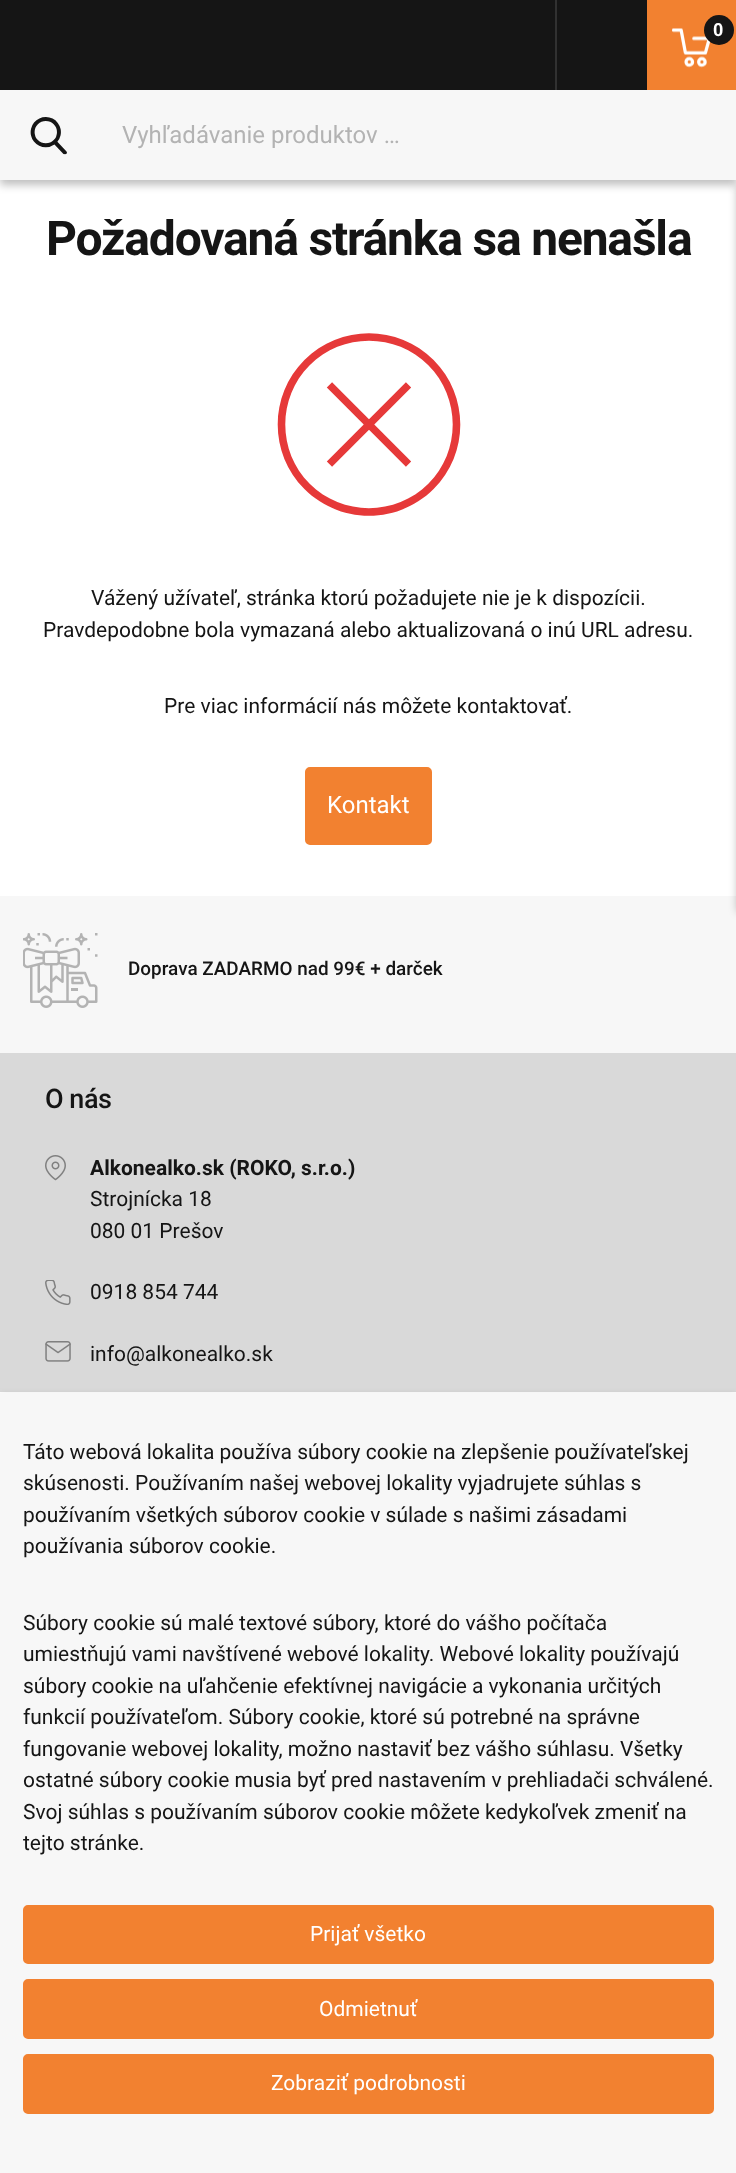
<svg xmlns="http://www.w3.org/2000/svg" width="736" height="2173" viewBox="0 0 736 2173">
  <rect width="100%" height="100%" fill="rgb(255,255,255)"/>
  <rect x="0" y="5" width="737" height="180" fill="rgba(0,0,0,0.25)" filter="blur(4.5px)"/>
  <rect x="0" y="0" width="647" height="90" fill="rgb(21,21,21)"/>
  <rect x="555" y="0" width="2" height="90" fill="rgb(49,49,49)"/>
  <rect x="647" y="0" width="89" height="90" fill="rgb(242,129,48)"/>
  <image x="672" y="28" width="39" height="40" href="pic1.png"/>
  <circle cx="719" cy="30" r="15" fill="rgb(21,21,21)"/>
  <text x="713" y="36" font-family="Roboto" font-size="18" font-weight="bold" fill="rgb(255,255,255)">0</text>
  <rect x="0" y="896" width="736" height="157" fill="rgb(247,247,247)"/>
  <rect x="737" y="185" width="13" height="727" fill="rgba(0,0,0,0.25)" filter="blur(4.5px)"/>
  <rect x="1" y="91" width="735" height="88" fill="rgb(247,247,247)" stroke="rgb(247,247,247)" stroke-width="2"/>
  <image x="30" y="117" width="37" height="38" href="pic2.png"/>
  <text x="122" y="143" font-family="Roboto" font-size="24" fill="rgb(179,179,179)">Vyhľadávanie produktov …</text>
  <text x="46" y="255" font-family="Roboto" font-size="48" font-weight="bold" letter-spacing="-1.2" fill="rgb(21,21,21)">Požadovaná stránka sa nenašla</text>
  <image x="277" y="333" width="184" height="183" href="pic3.png"/>
  <g font-family="Roboto" font-size="21" fill="rgb(21,21,21)">
    <text x="91" y="605">Vážený užívateľ, stránka ktorú požadujete nie je k dispozícii.</text>
    <text x="43" y="637">Pravdepodobne bola vymazaná alebo aktualizovaná o inú URL adresu.</text>
    <text x="164" y="713">Pre viac informácií nás môžete kontaktovať.</text>
  </g>
  <rect x="306" y="768" width="125" height="76" rx="4" fill="rgb(242,129,48)" stroke="rgb(242,129,48)" stroke-width="2"/>
  <text x="327" y="813" font-family="Roboto" font-size="24" fill="rgb(255,255,255)">Kontakt</text>
  <image x="23" y="933" width="75" height="75" href="pic4.png"/>
  <text x="128" y="975" font-family="Roboto" font-size="18.9" font-weight="500" fill="rgb(21,21,21)">Doprava ZADARMO nad 99€ + darček</text>
  <rect x="0" y="1053" width="736" height="339" fill="rgb(217,217,217)"/>
  <text x="45" y="1108" font-family="Roboto" font-size="27" font-weight="500" letter-spacing="-0.5" fill="rgb(21,21,21)">O nás</text>
  <image x="45" y="1155" width="21" height="26" href="pic5.png"/>
  <text x="90" y="1175" font-family="Roboto" font-size="21" font-weight="bold" fill="rgb(21,21,21)">Alkonealko.sk (ROKO, s.r.o.)</text>
  <g font-family="Roboto" font-size="21" fill="rgb(21,21,21)">
    <text>
      <tspan x="90" y="1206">Strojnícka 18</tspan>
      <tspan x="90" y="1238">080 01 Prešov</tspan>
    </text>
  </g>
  <image x="45" y="1280" width="26" height="25" href="pic6.png"/>
  <text x="90" y="1299" font-family="Roboto" font-size="21" fill="rgb(21,21,21)">0918 854 744</text>
  <image x="45" y="1341" width="26" height="21" href="pic7.png"/>
  <text x="90" y="1361" font-family="Roboto" font-size="21" fill="rgb(21,21,21)">info@alkonealko.sk</text>
  <rect x="0" y="1397" width="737" height="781" fill="rgba(0,0,0,0.25)" filter="blur(4.5px)"/>
  <rect x="0" y="1393" width="736" height="780" fill="rgb(247,247,247)"/>
  <g font-family="Roboto" font-size="21" fill="rgb(21,21,21)">
    <text>
      <tspan x="23" y="1459">Táto webová lokalita používa súbory cookie na zlepšenie používateľskej</tspan>
      <tspan x="23" y="1490">skúsenosti. Používaním našej webovej lokality vyjadrujete súhlas s</tspan>
      <tspan x="23" y="1522">používaním všetkých súborov cookie v súlade s našimi zásadami</tspan>
      <tspan x="23" y="1553">používania súborov cookie.</tspan>
    </text>
    <text>
      <tspan x="23" y="1630">Súbory cookie sú malé textové súbory, ktoré do vášho počítača</tspan>
      <tspan x="23" y="1661">umiestňujú vami navštívené webové lokality. Webové lokality používajú</tspan>
      <tspan x="23" y="1693">súbory cookie na uľahčenie efektívnej navigácie a vykonania určitých</tspan>
      <tspan x="23" y="1724">funkcií používateľom. Súbory cookie, ktoré sú potrebné na správne</tspan>
      <tspan x="23" y="1756">fungovanie webovej lokality, možno nastaviť bez vášho súhlasu. Všetky</tspan>
      <tspan x="23" y="1787">ostatné súbory cookie musia byť pred nastavením v prehliadači schválené.</tspan>
      <tspan x="23" y="1819">Svoj súhlas s používaním súborov cookie môžete kedykoľvek zmeniť na</tspan>
      <tspan x="23" y="1850">tejto stránke.</tspan>
    </text>
  </g>
  <rect x="24" y="1906" width="689" height="57" rx="4" fill="rgb(242,129,48)" stroke="rgb(242,129,48)" stroke-width="2"/>
  <text x="310" y="1941" font-family="Roboto" font-size="21" fill="rgb(255,255,255)">Prijať všetko</text>
  <rect x="24" y="1980" width="689" height="58" rx="4" fill="rgb(242,129,48)" stroke="rgb(242,129,48)" stroke-width="2"/>
  <text x="319" y="2016" font-family="Roboto" font-size="21" fill="rgb(255,255,255)">Odmietnuť</text>
  <rect x="24" y="2055" width="689" height="58" rx="4" fill="rgb(242,129,48)" stroke="rgb(242,129,48)" stroke-width="2"/>
  <text x="271" y="2090" font-family="Roboto" font-size="21" fill="rgb(255,255,255)">Zobraziť podrobnosti</text>
</svg>
